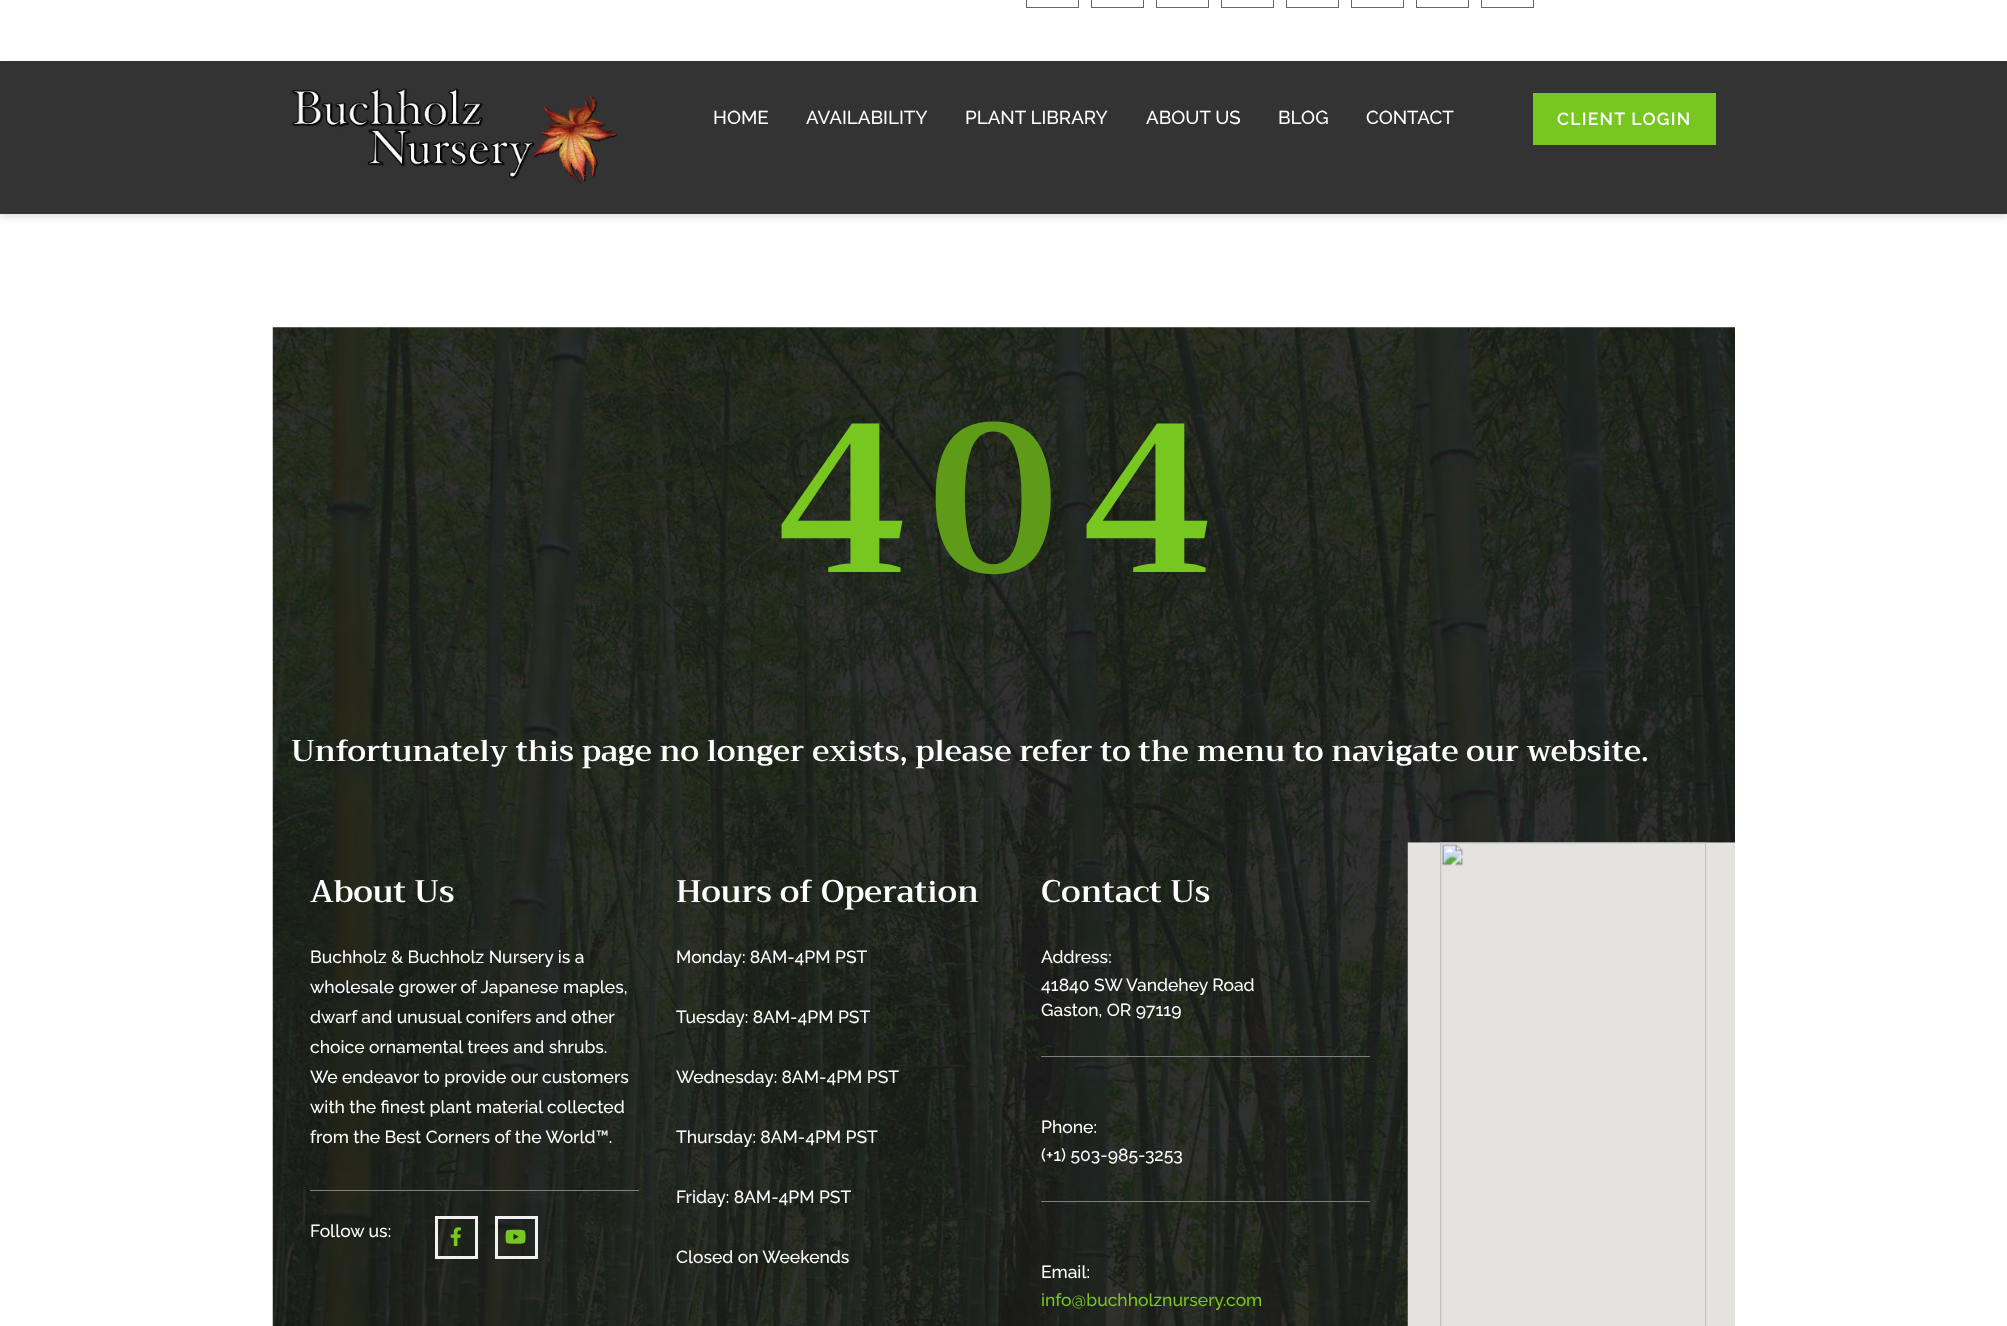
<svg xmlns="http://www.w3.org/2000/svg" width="2007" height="1326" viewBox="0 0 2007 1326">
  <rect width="100%" height="100%" fill="rgb(255,255,255)"/>
  <rect x="1026.5" y="-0.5" width="52" height="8" fill="none" stroke="rgb(102,102,102)"/>
  <rect x="1091.5" y="-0.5" width="52" height="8" fill="none" stroke="rgb(102,102,102)"/>
  <rect x="1156.5" y="-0.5" width="52" height="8" fill="none" stroke="rgb(102,102,102)"/>
  <rect x="1221.5" y="-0.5" width="52" height="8" fill="none" stroke="rgb(102,102,102)"/>
  <rect x="1286.5" y="-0.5" width="52" height="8" fill="none" stroke="rgb(102,102,102)"/>
  <rect x="1351.5" y="-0.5" width="52" height="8" fill="none" stroke="rgb(102,102,102)"/>
  <rect x="1416.5" y="-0.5" width="52" height="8" fill="none" stroke="rgb(102,102,102)"/>
  <rect x="1481.5" y="-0.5" width="52" height="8" fill="none" stroke="rgb(102,102,102)"/>
  <rect x="0" y="65" width="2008" height="153" fill="rgba(0,0,0,0.1)" filter="blur(3px)"/>
  <rect x="0" y="61" width="2007" height="153" fill="rgb(51,51,51)"/>
  <image x="292" y="88" width="326" height="96" href="pic1.png"/>
  <g font-family="Raleway" font-size="18.75" font-weight="500" fill="rgb(255,255,255)">
    <text x="713" y="124">HOME</text>
    <text x="806" y="124">AVAILABILITY</text>
    <text x="965" y="124">PLANT LIBRARY</text>
    <text x="1146" y="124">ABOUT US</text>
    <text x="1278" y="124">BLOG</text>
    <text x="1366" y="124">CONTACT</text>
  </g>
  <rect x="1533" y="93" width="183" height="52" fill="rgb(119,199,32)"/>
  <text x="1557" y="125" font-family="Raleway" font-size="17.5" font-weight="600" letter-spacing="1.25" fill="rgb(255,255,255)">CLIENT LOGIN</text>
  <image x="272" y="327" width="1463" height="999" href="pic2.png"/>
  <text x="775" y="572" font-family="Trirong" font-size="212" font-weight="600" letter-spacing="21" fill="rgb(119,199,32)">4</text>
  <text x="928" y="572" font-family="Trirong" font-size="212" font-weight="600" letter-spacing="21" fill="rgb(93,155,25)">0</text>
  <text x="1080" y="572" font-family="Trirong" font-size="212" font-weight="600" letter-spacing="21" fill="rgb(119,199,32)">4</text>
  <text x="291" y="761" font-family="Trirong" font-size="30" font-weight="600" fill="rgb(255,255,255)">Unfortunately this page no longer exists, please refer to the menu to navigate our website.</text>
  <text x="310" y="902" font-family="Trirong" font-size="31.25" font-weight="600" fill="rgb(255,255,255)">About Us</text>
  <rect x="310" y="1190" width="329" height="1" fill="rgb(128,128,128)"/>
  <g font-family="Raleway" font-size="17.5" font-weight="500" fill="rgb(255,255,255)">
    <text>
      <tspan x="310" y="963">Buchholz &amp; Buchholz Nursery is a</tspan>
      <tspan x="310" y="993">wholesale grower of Japanese maples,</tspan>
      <tspan x="310" y="1023">dwarf and unusual conifers and other</tspan>
      <tspan x="310" y="1053">choice ornamental trees and shrubs.</tspan>
      <tspan x="310" y="1083">We endeavor to provide our customers</tspan>
      <tspan x="310" y="1113">with the finest plant material collected</tspan>
      <tspan x="310" y="1143">from the Best Corners of the World™.</tspan>
    </text>
    <text x="310" y="1237">Follow us:</text>
  </g>
  <rect x="436.5" y="1217.5" width="40" height="40" fill="none" stroke="rgb(241,241,241)" stroke-width="3"/>
  <image x="450" y="1227" width="11" height="20" href="pic3.png"/>
  <rect x="496.5" y="1217.5" width="40" height="40" fill="none" stroke="rgb(241,241,241)" stroke-width="3"/>
  <image x="505" y="1229" width="21" height="15" href="pic4.png"/>
  <text x="676" y="902" font-family="Trirong" font-size="31.25" font-weight="600" fill="rgb(255,255,255)">Hours of Operation</text>
  <g font-family="Raleway" font-size="17.5" font-weight="500" fill="rgb(255,255,255)">
    <text x="676" y="963">Monday: 8AM-4PM PST</text>
    <text x="676" y="1023">Tuesday: 8AM-4PM PST</text>
    <text x="676" y="1083">Wednesday: 8AM-4PM PST</text>
    <text x="676" y="1143">Thursday: 8AM-4PM PST</text>
    <text x="676" y="1203">Friday: 8AM-4PM PST</text>
    <text x="676" y="1263">Closed on Weekends</text>
  </g>
  <text x="1041" y="902" font-family="Trirong" font-size="31.25" font-weight="600" fill="rgb(255,255,255)">Contact Us</text>
  <rect x="1041" y="1056" width="329" height="1" fill="rgb(128,128,128)"/>
  <g font-family="Raleway" font-size="17.5" font-weight="500" fill="rgb(255,255,255)">
    <text>
      <tspan x="1041" y="963">Address:</tspan>
      <tspan x="1041" y="991">41840 SW Vandehey Road</tspan>
      <tspan x="1041" y="1016">Gaston, OR 97119</tspan>
    </text>
  </g>
  <rect x="1041" y="1201" width="329" height="1" fill="rgb(128,128,128)"/>
  <g font-family="Raleway" font-size="17.5" font-weight="500" fill="rgb(255,255,255)">
    <text>
      <tspan x="1041" y="1133">Phone:</tspan>
      <tspan x="1041" y="1161">(+1) 503-985-3253</tspan>
    </text>
    <text x="1041" y="1278">Email:</text>
  </g>
  <text x="1041" y="1306" font-family="Raleway" font-size="17.5" font-weight="500" fill="rgb(119,199,32)">info@buchholznursery.com</text>
  <image x="1407" y="842" width="328" height="484" href="pic5.png"/>
</svg>
